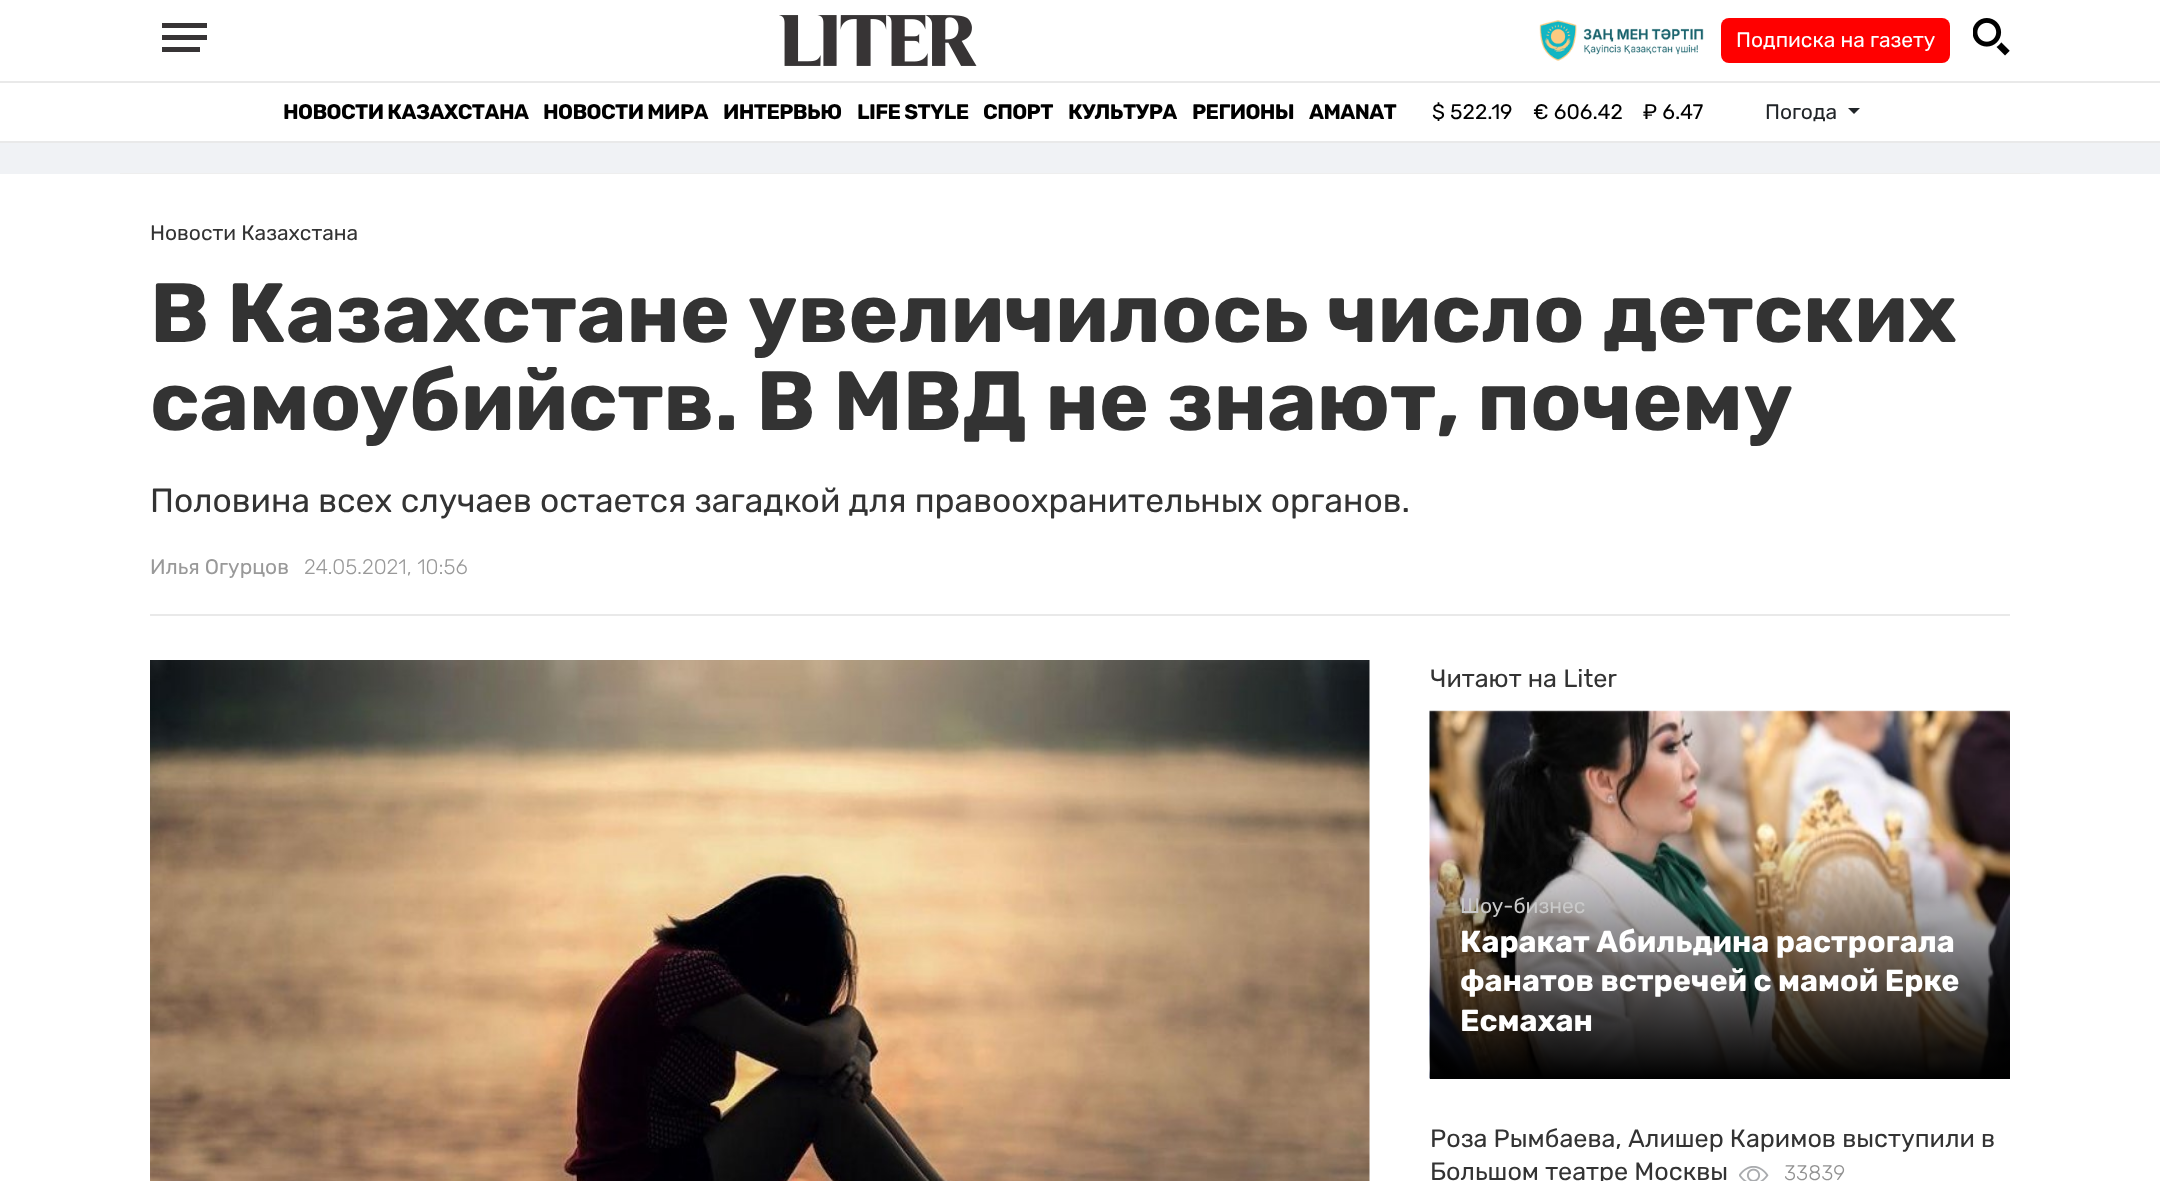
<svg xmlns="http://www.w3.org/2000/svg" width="2160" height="1181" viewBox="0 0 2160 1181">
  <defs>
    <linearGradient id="g1" gradientUnits="userSpaceOnUse" x1="1720" y1="833" x2="1720" y2="1079"><stop offset="0" stop-color="rgb(0,0,0)" stop-opacity="0"/><stop offset="1" stop-color="rgb(0,0,0)"/></linearGradient>
  </defs>
  <rect width="100%" height="100%" fill="rgb(240,242,245)"/>
  <rect x="0" y="0" width="2160" height="81" fill="rgb(255,255,255)"/>
  <rect x="0" y="81" width="2160" height="2" fill="rgb(233,233,233)"/>
  <rect x="162" y="23" width="45" height="5" fill="rgb(55,52,53)"/>
  <rect x="162" y="35" width="45" height="5" fill="rgb(55,52,53)"/>
  <rect x="162" y="47" width="38" height="5" fill="rgb(55,52,53)"/>
  <image x="779" y="15" width="198" height="51" href="pic1.png"/>
  <image x="1539" y="20" width="165" height="41" href="pic2.png"/>
  <rect x="1721" y="18" width="229" height="45" rx="8" fill="rgb(255,0,0)"/>
  <text x="1736" y="47" font-family="Rubik" font-size="21" fill="rgb(255,255,255)">Подписка на газету</text>
  <image x="1973" y="18" width="37" height="38" href="pic3.png"/>
  <rect x="0" y="83" width="2160" height="58" fill="rgb(255,255,255)"/>
  <rect x="0" y="141" width="2160" height="2" fill="rgb(233,233,233)"/>
  <g font-family="Rubik" font-size="21" font-weight="bold" letter-spacing="-0.6" fill="rgb(0,0,0)">
    <text x="283" y="119">НОВОСТИ КАЗАХСТАНА</text>
    <text x="543" y="119">НОВОСТИ МИРА</text>
    <text x="723" y="119">ИНТЕРВЬЮ</text>
    <text x="857" y="119">LIFE STYLE</text>
    <text x="983" y="119">СПОРТ</text>
    <text x="1068" y="119">КУЛЬТУРА</text>
    <text x="1192" y="119">РЕГИОНЫ</text>
    <text x="1309" y="119">AMANAT</text>
  </g>
  <g font-family="Rubik" font-size="21" fill="rgb(0,0,0)">
    <text x="1432" y="119">$ 522.19</text>
    <text x="1533" y="119">€ 606.42</text>
    <text x="1643" y="119">₽ 6.47</text>
  </g>
  <text x="1765" y="119" font-family="Rubik" font-size="21" fill="rgb(33,37,41)">Погода</text>
  <path d="M1848 108H1860L1854 114Z" fill="rgb(33,37,41)"/>
  <rect x="120" y="173" width="1920" height="1" fill="rgb(238,238,238)"/>
  <rect x="0" y="174" width="2160" height="1007" fill="rgb(255,255,255)"/>
  <rect x="150" y="614" width="1860" height="2" fill="rgb(233,233,233)"/>
  <text x="150" y="240" font-family="Rubik" font-size="21" fill="rgb(51,51,51)">Новости Казахстана</text>
  <g font-family="Rubik" font-size="84" font-weight="bold" fill="rgb(51,51,51)">
    <text>
      <tspan x="150" y="342">В Казахстане увеличилось число детских</tspan>
      <tspan x="150" y="430">самоубийств. В МВД не знают, почему</tspan>
    </text>
  </g>
  <text x="150" y="512" font-family="Rubik" font-size="33.6" fill="rgb(51,51,51)">Половина всех случаев остается загадкой для правоохранительных органов.</text>
  <text x="150" y="574" font-family="Rubik" font-size="21" fill="rgb(153,153,153)">Илья Огурцов</text>
  <text x="304" y="574" font-family="Rubik" font-size="21" font-weight="300" fill="rgb(153,153,153)">24.05.2021, 10:56</text>
  <image x="150" y="660" width="1220" height="521" href="pic4.png"/>
  <text x="1430" y="687" font-family="Rubik" font-size="25.2" fill="rgb(51,51,51)">Читают на Liter</text>
  <image x="1429" y="710" width="581" height="369" href="pic5.png"/>
  <rect x="1430" y="838" width="580" height="241" fill="url(#g1)"/>
  <text x="1460" y="913" font-family="Rubik" font-size="21" fill="rgb(201,201,201)">Шоу-бизнес</text>
  <g font-family="Rubik" font-size="30.5" font-weight="bold" fill="rgb(255,255,255)">
    <text>
      <tspan x="1460" y="952">Каракат Абильдина растрогала</tspan>
      <tspan x="1460" y="991">фанатов встречей с мамой Ерке</tspan>
      <tspan x="1460" y="1031">Есмахан</tspan>
    </text>
  </g>
  <g font-family="Rubik" font-size="25.2" fill="rgb(51,51,51)">
    <text>
      <tspan x="1430" y="1147">Роза Рымбаева, Алишер Каримов выступили в</tspan>
      <tspan x="1430" y="1180">Большом театре Москвы</tspan>
    </text>
  </g>
  <image x="1739" y="1166" width="30" height="15" href="pic6.png"/>
  <text x="1784" y="1180" font-family="Rubik" font-size="21" font-weight="300" fill="rgb(145,145,145)">33839</text>
</svg>
